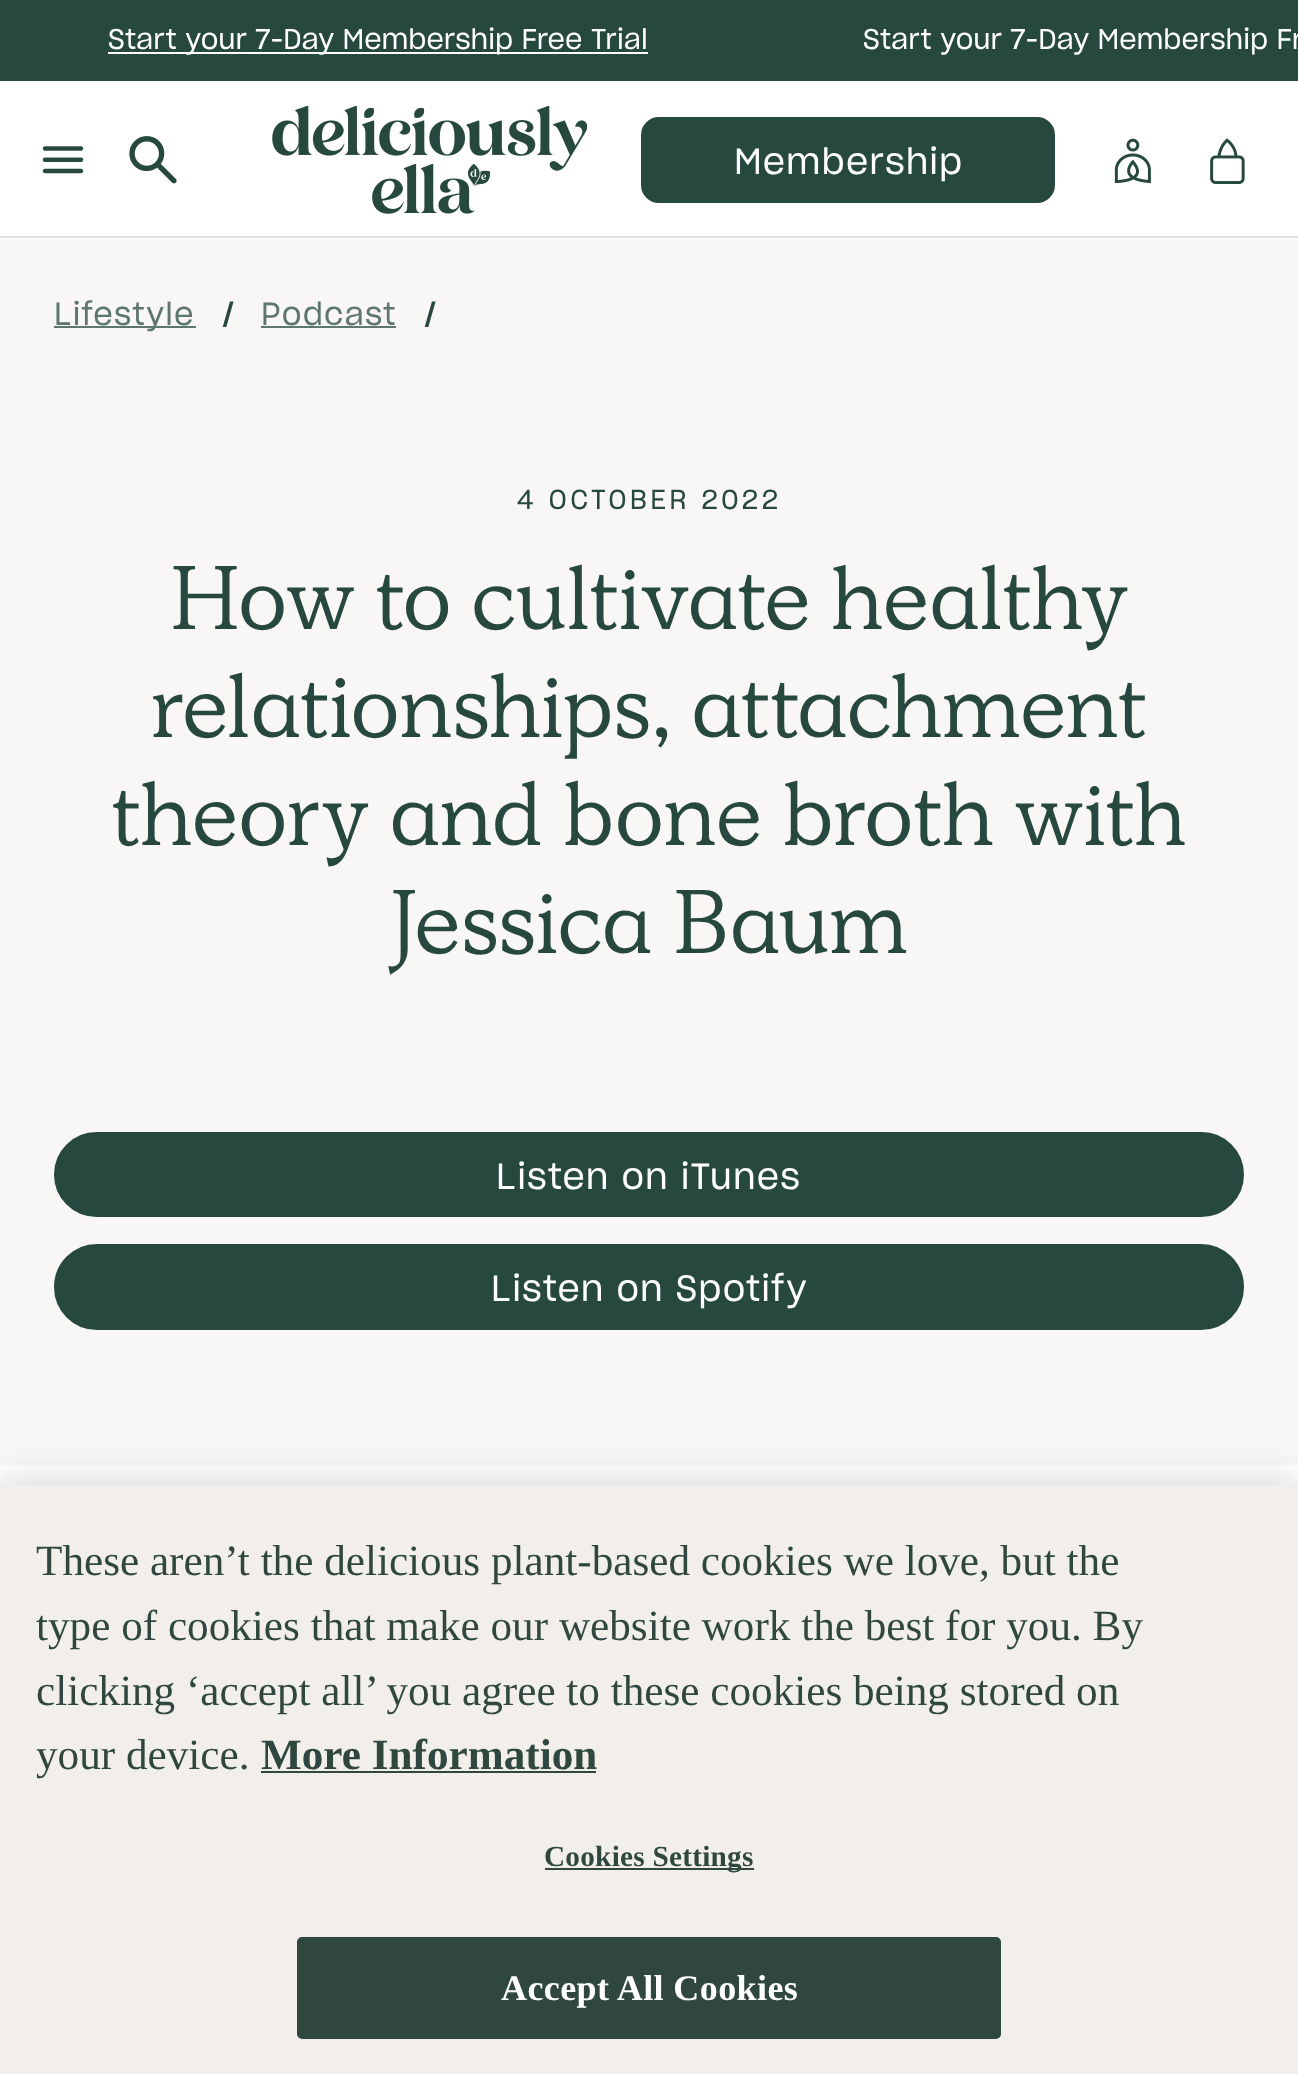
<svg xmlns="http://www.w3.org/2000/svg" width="1298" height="2074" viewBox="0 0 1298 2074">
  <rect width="100%" height="100%" fill="rgb(255,255,255)"/>
  <rect x="0" y="0" width="1298" height="81" fill="rgb(39,72,62)"/>
  <rect x="108" y="52" width="540" height="2" fill="rgb(255,255,255)"/>
  <g font-family="'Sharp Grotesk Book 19'" font-size="28.1" fill="rgb(255,255,255)">
    <text x="108" y="49">Start your 7-Day Membership Free Trial</text>
    <text x="863" y="49">Start your 7-Day Membership Fr</text>
  </g>
  <rect x="0" y="236" width="1298" height="2" fill="rgb(224,224,224)"/>
  <image x="42" y="146" width="42" height="28" href="pic1.png"/>
  <image x="129" y="136" width="48" height="48" href="pic2.png"/>
  <image x="272" y="106" width="315" height="108" href="pic3.png"/>
  <rect x="642" y="118" width="412" height="84" rx="17" fill="rgb(39,72,62)" stroke="rgb(39,72,62)" stroke-width="2"/>
  <text x="734" y="174" font-family="'Sharp Grotesk Book 19'" font-size="36" letter-spacing="1.1" fill="rgb(255,255,255)">Membership</text>
  <image x="1114" y="138" width="37" height="46" href="pic4.png"/>
  <image x="1210" y="138" width="35" height="46" href="pic5.png"/>
  <rect x="0" y="239" width="1298" height="1226" fill="rgb(249,247,245)"/>
  <rect x="54" y="326" width="142" height="2" fill="rgb(93,118,110)"/>
  <text x="54" y="325" font-family="'Sharp Grotesk Book 19'" font-size="31.5" letter-spacing="1.1" fill="rgb(93,118,110)">Lifestyle</text>
  <text x="222" y="327" font-family="'Sharp Grotesk Book 19'" font-size="36" fill="rgb(39,72,62)">/</text>
  <text x="261" y="325" font-family="'Sharp Grotesk Book 19'" font-size="31.5" letter-spacing="1.1" fill="rgb(93,118,110)">Podcast</text>
  <rect x="261" y="326" width="135" height="2" fill="rgb(93,118,110)"/>
  <text x="424" y="327" font-family="'Sharp Grotesk Book 19'" font-size="36" fill="rgb(39,72,62)">/</text>
  <text x="517" y="509" font-family="'Sharp Grotesk Book 19'" font-size="27" letter-spacing="3.4" fill="rgb(39,72,62)">4 OCTOBER 2022</text>
  <g font-family="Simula" font-size="90" fill="rgb(39,72,62)">
    <text x="170" y="629">How to cultivate healthy</text>
    <text x="151" y="737">relationships, attachment</text>
    <text x="112" y="845">theory and bone broth with</text>
    <text x="390" y="953">Jessica Baum</text>
  </g>
  <rect x="55" y="1133" width="1188" height="83" rx="41.5" fill="rgb(39,72,62)" stroke="rgb(39,72,62)" stroke-width="2"/>
  <text x="496" y="1189" font-family="'Sharp Grotesk Book 19'" font-size="36" letter-spacing="1.1" fill="rgb(255,255,255)">Listen on iTunes</text>
  <rect x="55" y="1245" width="1188" height="84" rx="42" fill="rgb(39,72,62)" stroke="rgb(39,72,62)" stroke-width="2"/>
  <text x="491" y="1301" font-family="'Sharp Grotesk Book 19'" font-size="36" letter-spacing="1.1" fill="rgb(255,255,255)">Listen on Spotify</text>
  <rect x="0" y="1485" width="1298" height="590" fill="rgba(0,0,0,0.2)" filter="blur(20px)"/>
  <rect x="0" y="1485" width="1298" height="589" fill="rgb(242,239,235)"/>
  <g font-family="Liberation Serif" font-size="43.2" fill="rgb(47,71,62)">
    <text>
      <tspan x="36" y="1575">These aren’t the delicious plant-based cookies we love, but the</tspan>
      <tspan x="36" y="1640">type of cookies that make our website work the best for you. By</tspan>
      <tspan x="36" y="1705">clicking ‘accept all’ you agree to these cookies being stored on</tspan>
      <tspan x="36" y="1769">your device.</tspan>
    </text>
  </g>
  <text x="261" y="1769" font-family="Liberation Serif" font-size="43.2" font-weight="bold" fill="rgb(47,71,62)">More Information</text>
  <rect x="261" y="1771" width="335" height="2" fill="rgb(47,71,62)"/>
  <rect x="545" y="1868" width="209" height="2" fill="rgb(47,71,62)"/>
  <text x="544" y="1866" font-family="Liberation Serif" font-size="29.25" font-weight="bold" letter-spacing="0.25" fill="rgb(47,71,62)">Cookies Settings</text>
  <rect x="298" y="1938" width="702" height="100" rx="4" fill="rgb(47,71,62)" stroke="rgb(47,71,62)" stroke-width="2"/>
  <text x="501" y="2000" font-family="Liberation Serif" font-size="36" font-weight="bold" letter-spacing="0.4" fill="rgb(255,255,255)">Accept All Cookies</text>
</svg>
